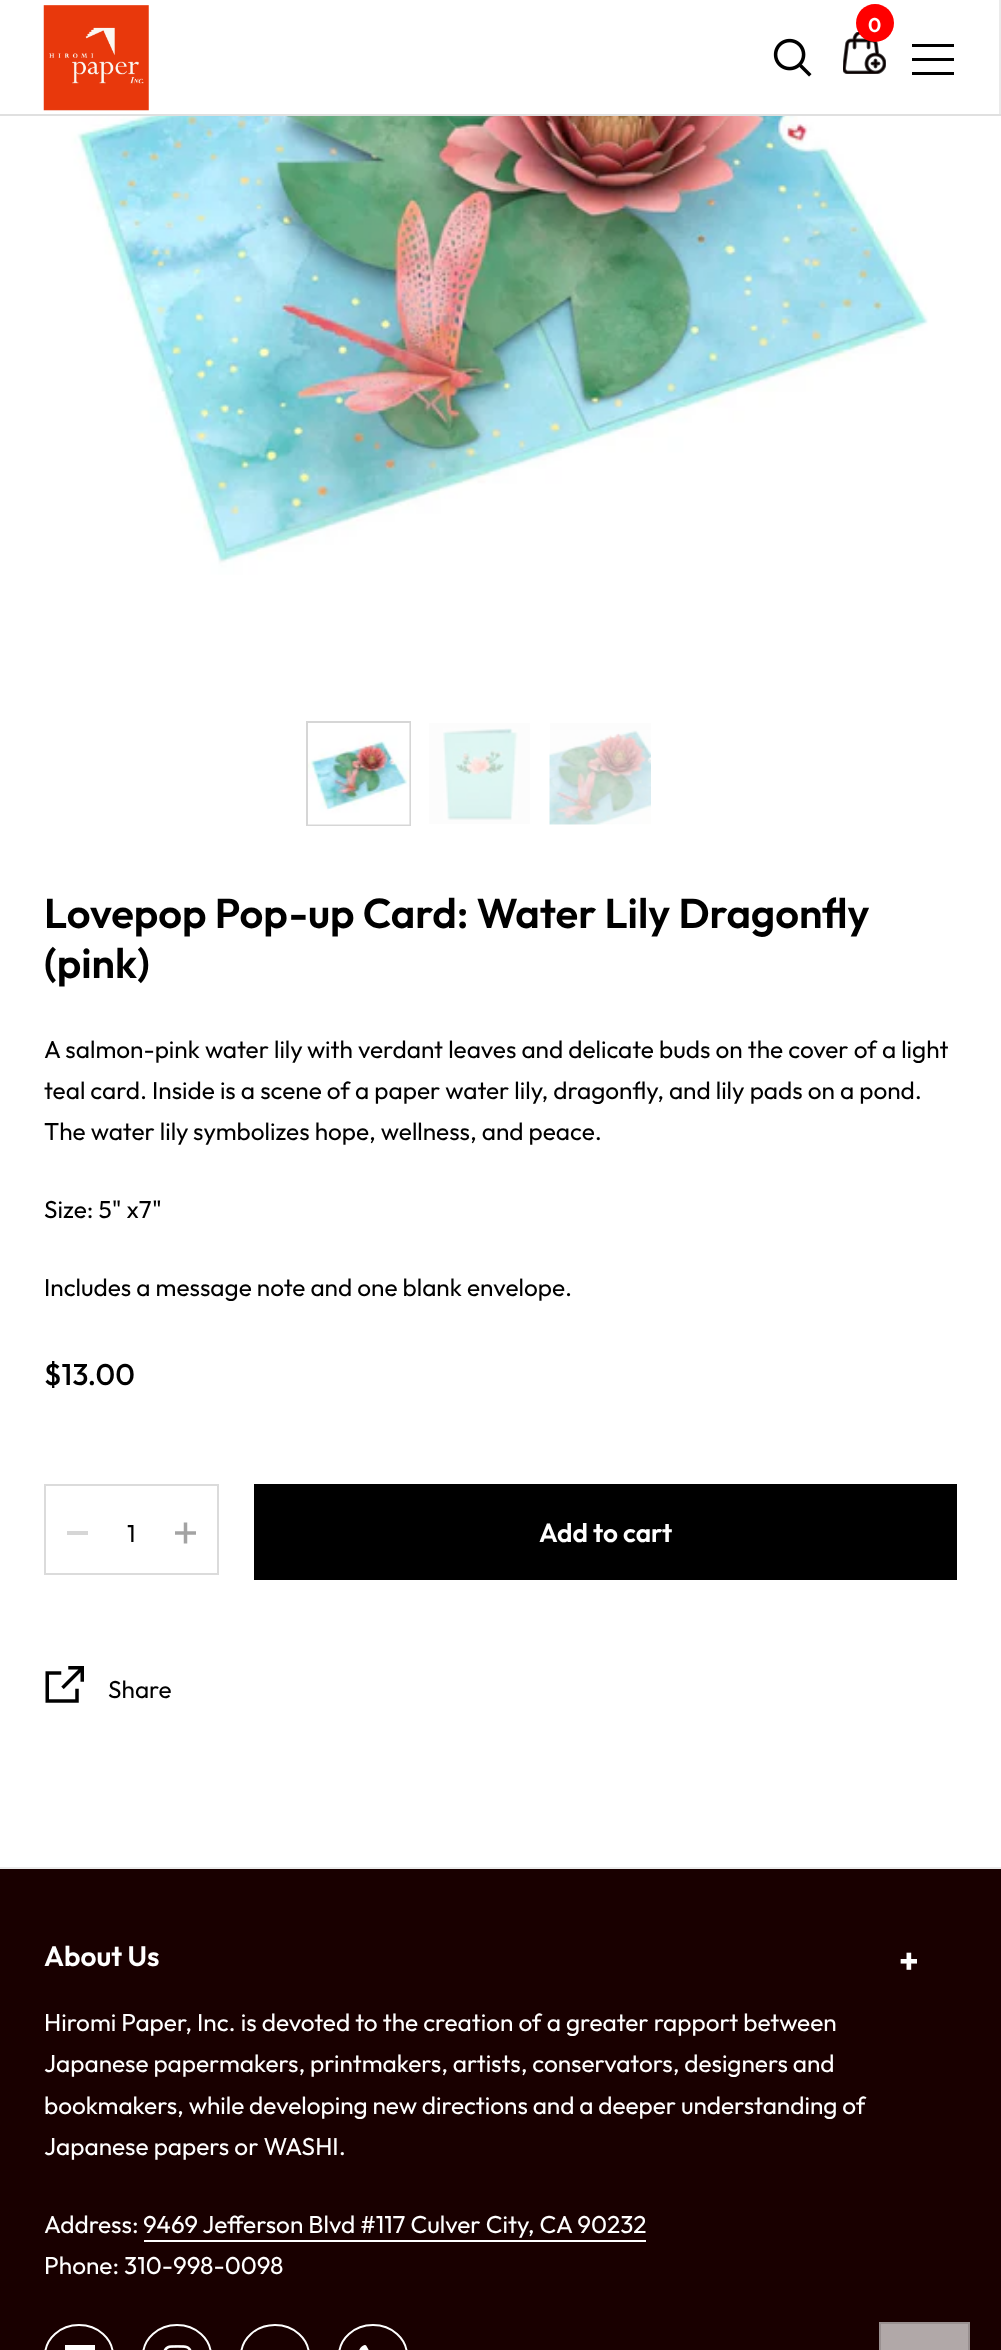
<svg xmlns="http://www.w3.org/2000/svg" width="1001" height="2350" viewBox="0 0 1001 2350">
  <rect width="100%" height="100%" fill="rgb(255,255,255)"/>
  <rect x="0" y="114" width="1001" height="2" fill="rgb(224,224,224)"/>
  <rect x="999" y="0" width="2" height="114" fill="rgb(235,235,235)"/>
  <image x="43" y="5" width="106" height="106" href="pic1.png"/>
  <image x="843" y="32" width="43" height="42" href="pic2.png"/>
  <circle cx="875" cy="23" r="19" fill="rgb(255,0,0)"/>
  <text x="868" y="32" font-family="Outfit" font-size="20" font-weight="600" fill="rgb(255,255,255)">0</text>
  <image x="773" y="38" width="39" height="39" href="pic3.png"/>
  <rect x="912" y="44" width="42" height="3" fill="rgb(0,0,0)"/>
  <rect x="912" y="58" width="42" height="3" fill="rgb(0,0,0)"/>
  <rect x="912" y="72" width="42" height="3" fill="rgb(0,0,0)"/>
  <rect x="0" y="1867" width="1001" height="2" fill="rgb(235,235,235)"/>
  <image x="44" y="116" width="913" height="584" href="pic4.png"/>
  <rect x="307" y="722" width="103" height="103" fill="none" stroke="rgb(214,214,214)" stroke-width="2"/>
  <rect x="409" y="723" width="1" height="101" fill="rgba(0,0,0,0.03)"/>
  <image x="308" y="723" width="102" height="102" href="pic5.png"/>
  <rect x="429" y="723" width="101" height="101" fill="rgb(252,252,252)"/>
  <image x="443" y="728" width="75" height="92" href="pic6.png"/>
  <rect x="550" y="723" width="101" height="101" fill="rgb(252,252,252)"/>
  <image x="549" y="730" width="102" height="95" href="pic7.png"/>
  <g font-family="Outfit" font-size="41.75" font-weight="600" fill="rgb(0,0,0)">
    <text>
      <tspan x="44" y="928">Lovepop Pop-up Card: Water Lily Dragonfly</tspan>
      <tspan x="44" y="978">(pink)</tspan>
    </text>
  </g>
  <g font-family="Outfit" font-size="24.4" fill="rgb(0,0,0)">
    <text x="44" y="1058">A salmon-pink water lily</text>
    <text x="307" y="1058">with verdant leaves and delicate buds on the cover of a light</text>
    <text>
      <tspan x="44" y="1099">teal card. Inside is a scene of a paper water lily, dragonfly, and lily pads on a pond.</tspan>
      <tspan x="44" y="1140">The water lily</tspan>
    </text>
    <text x="193" y="1140">symbolizes hope, wellness, and peace.</text>
    <text x="44" y="1218">Size: 5" x7"</text>
    <text x="44" y="1296">Includes a message note and one blank envelope.</text>
  </g>
  <text x="44" y="1385" font-family="Outfit" font-size="30" font-weight="500" fill="rgb(0,0,0)">$13.00</text>
  <rect x="45" y="1485" width="173" height="89" fill="none" stroke="rgb(219,219,219)" stroke-width="2"/>
  <rect x="67" y="1531" width="21" height="4" fill="rgb(214,214,214)"/>
  <text x="127" y="1542" font-family="Outfit" font-size="24.4" fill="rgb(0,0,0)">1</text>
  <image x="175" y="1522" width="21" height="22" href="pic8.png"/>
  <rect x="254" y="1484" width="703" height="96" fill="rgb(0,0,0)"/>
  <text x="539" y="1542" font-family="Outfit" font-size="26.25" font-weight="600" fill="rgb(255,255,255)">Add to cart</text>
  <image x="45" y="1666" width="39" height="37" href="pic9.png"/>
  <text x="108" y="1698" font-family="Outfit" font-size="24.4" fill="rgb(0,0,0)">Share</text>
  <rect x="0" y="1869" width="1001" height="481" fill="rgb(25,0,0)"/>
  <text x="44" y="1966" font-family="Outfit" font-size="28" font-weight="600" fill="rgb(255,255,255)">About Us</text>
  <text x="899" y="1973" font-family="Outfit" font-size="35" font-weight="bold" fill="rgb(255,255,255)">+</text>
  <g font-family="Outfit" font-size="24.4" fill="rgb(255,255,255)">
    <text>
      <tspan x="44" y="2031">Hiromi Paper, Inc. is devoted to the creation of a greater rapport between</tspan>
      <tspan x="44" y="2072" word-spacing="-0.25">Japanese papermakers, printmakers, artists, conservators, designers and</tspan>
      <tspan x="44" y="2114" word-spacing="-0.25">bookmakers, while developing new directions and a deeper understanding of</tspan>
      <tspan x="44" y="2155">Japanese papers or WASHI.</tspan>
    </text>
    <text x="44" y="2233">Address:</text>
    <text x="143" y="2233">9469 Jefferson Blvd #117 Culver City, CA 90232</text>
  </g>
  <rect x="144" y="2240" width="502" height="2" fill="rgb(255,255,255)"/>
  <text x="44" y="2274" font-family="Outfit" font-size="24.4" fill="rgb(255,255,255)">Phone: 310-998-0098</text>
  <rect x="45" y="2325" width="68" height="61" rx="34" fill="none" stroke="rgb(255,255,255)" stroke-width="2"/>
  <rect x="65" y="2345" width="30" height="5" fill="rgb(255,255,255)"/>
  <rect x="143" y="2325" width="68" height="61" rx="34" fill="none" stroke="rgb(255,255,255)" stroke-width="2"/>
  <image x="163" y="2345" width="29" height="5" href="pic10.png"/>
  <rect x="241" y="2325" width="68" height="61" rx="34" fill="none" stroke="rgb(255,255,255)" stroke-width="2"/>
  <rect x="339" y="2325" width="68" height="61" rx="34" fill="none" stroke="rgb(255,255,255)" stroke-width="2"/>
  <image x="359" y="2345" width="10" height="5" href="pic11.png"/>
  <rect x="880" y="2323" width="89" height="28" fill="rgb(177,168,168)" stroke="rgb(153,144,144)" stroke-width="2"/>
</svg>
